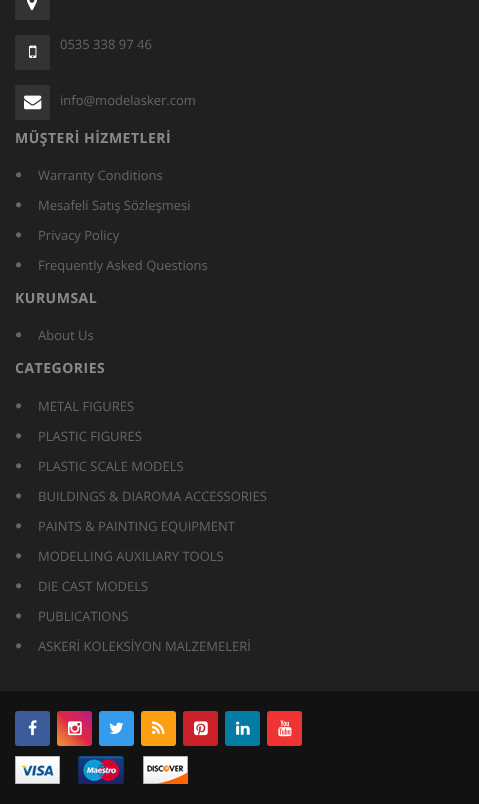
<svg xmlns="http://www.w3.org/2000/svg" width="479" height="804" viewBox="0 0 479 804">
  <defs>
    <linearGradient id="g1" gradientUnits="userSpaceOnUse" x1="57" y1="746" x2="92" y2="711"><stop offset="0" stop-color="rgb(240,148,51)"/><stop offset="0.25" stop-color="rgb(230,104,60)"/><stop offset="0.5" stop-color="rgb(220,39,67)"/><stop offset="0.75" stop-color="rgb(204,35,102)"/><stop offset="1" stop-color="rgb(188,24,136)"/></linearGradient>
  </defs>
  <rect width="100%" height="100%" fill="rgb(32,32,32)"/>
  <rect x="15" y="-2" width="35" height="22" rx="2" fill="rgb(51,51,51)"/>
  <image x="27" y="0" width="10" height="11" href="pic1.png"/>
  <rect x="15" y="35" width="35" height="35" rx="2" fill="rgb(51,51,51)"/>
  <image x="29" y="45" width="8" height="13" href="pic2.png"/>
  <text x="60" y="49" font-family="Open Sans" font-size="13" fill="rgb(102,102,102)">0535 338 97 46</text>
  <rect x="15" y="85" width="35" height="35" rx="2" fill="rgb(51,51,51)"/>
  <image x="24" y="95" width="18" height="15" href="pic3.png"/>
  <text x="60" y="105" font-family="Open Sans" font-size="13" fill="rgb(102,102,102)">info@modelasker.com</text>
  <text x="15" y="143" font-family="Open Sans" font-size="14" font-weight="bold" letter-spacing="0.5" fill="rgb(137,137,137)">MÜŞTERİ HİZMETLERİ</text>
  <image x="16" y="172" width="6" height="6" href="pic4.png"/>
  <text x="38" y="180" font-family="Open Sans" font-size="13" fill="rgb(102,102,102)">Warranty Conditions</text>
  <image x="16" y="202" width="6" height="6" href="pic4.png"/>
  <text x="38" y="210" font-family="Open Sans" font-size="13" fill="rgb(102,102,102)">Mesafeli Satış Sözleşmesi</text>
  <image x="16" y="232" width="6" height="6" href="pic4.png"/>
  <text x="38" y="240" font-family="Open Sans" font-size="13" fill="rgb(102,102,102)">Privacy Policy</text>
  <image x="16" y="262" width="6" height="6" href="pic4.png"/>
  <text x="38" y="270" font-family="Open Sans" font-size="13" fill="rgb(102,102,102)">Frequently Asked Questions</text>
  <text x="15" y="303" font-family="Open Sans" font-size="14" font-weight="bold" letter-spacing="0.5" fill="rgb(137,137,137)">KURUMSAL</text>
  <image x="16" y="332" width="6" height="6" href="pic4.png"/>
  <text x="38" y="340" font-family="Open Sans" font-size="13" fill="rgb(102,102,102)">About Us</text>
  <text x="15" y="373" font-family="Open Sans" font-size="14" font-weight="bold" letter-spacing="0.5" fill="rgb(137,137,137)">CATEGORIES</text>
  <image x="16" y="403" width="6" height="6" href="pic4.png"/>
  <text x="38" y="411" font-family="Open Sans" font-size="13" fill="rgb(102,102,102)">METAL FIGURES</text>
  <image x="16" y="433" width="6" height="6" href="pic4.png"/>
  <text x="38" y="441" font-family="Open Sans" font-size="13" fill="rgb(102,102,102)">PLASTIC FIGURES</text>
  <image x="16" y="463" width="6" height="6" href="pic4.png"/>
  <text x="38" y="471" font-family="Open Sans" font-size="13" fill="rgb(102,102,102)">PLASTIC SCALE MODELS</text>
  <image x="16" y="493" width="6" height="6" href="pic4.png"/>
  <text x="38" y="501" font-family="Open Sans" font-size="13" fill="rgb(102,102,102)">BUILDINGS &amp; DIAROMA ACCESSORIES</text>
  <image x="16" y="523" width="6" height="6" href="pic4.png"/>
  <text x="38" y="531" font-family="Open Sans" font-size="13" fill="rgb(102,102,102)">PAINTS &amp; PAINTING EQUIPMENT</text>
  <image x="16" y="553" width="6" height="6" href="pic4.png"/>
  <text x="38" y="561" font-family="Open Sans" font-size="13" fill="rgb(102,102,102)">MODELLING AUXILIARY TOOLS</text>
  <image x="16" y="583" width="6" height="6" href="pic4.png"/>
  <text x="38" y="591" font-family="Open Sans" font-size="13" fill="rgb(102,102,102)">DIE CAST MODELS</text>
  <image x="16" y="613" width="6" height="6" href="pic4.png"/>
  <text x="38" y="621" font-family="Open Sans" font-size="13" fill="rgb(102,102,102)">PUBLICATIONS</text>
  <image x="16" y="643" width="6" height="6" href="pic4.png"/>
  <text x="38" y="651" font-family="Open Sans" font-size="13" fill="rgb(102,102,102)">ASKERİ KOLEKSİYON MALZEMELERİ</text>
  <rect x="0" y="691" width="479" height="113" fill="rgb(18,18,18)"/>
  <rect x="15" y="711" width="35" height="35" rx="3" fill="rgb(60,91,155)"/>
  <image x="28" y="720" width="9" height="16" href="pic5.png"/>
  <rect x="57" y="711" width="35" height="35" rx="3" fill="url(#g1)"/>
  <image x="68" y="721" width="14" height="15" href="pic6.png"/>
  <rect x="99" y="711" width="35" height="35" rx="3" fill="rgb(53,155,237)"/>
  <image x="109" y="722" width="15" height="12" href="pic7.png"/>
  <rect x="141" y="711" width="35" height="35" rx="3" fill="rgb(253,159,19)"/>
  <image x="152" y="721" width="13" height="13" href="pic8.png"/>
  <rect x="183" y="711" width="35" height="35" rx="3" fill="rgb(203,32,39)"/>
  <image x="194" y="721" width="14" height="15" href="pic9.png"/>
  <rect x="225" y="711" width="35" height="35" rx="3" fill="rgb(2,123,165)"/>
  <image x="236" y="721" width="14" height="14" href="pic10.png"/>
  <rect x="267" y="711" width="35" height="35" rx="3" fill="rgb(240,52,52)"/>
  <image x="278" y="720" width="14" height="17" href="pic11.png"/>
  <image x="15" y="756" width="45" height="28" href="pic12.png"/>
  <image x="78" y="756" width="46" height="28" href="pic13.png"/>
  <image x="143" y="756" width="45" height="28" href="pic14.png"/>
</svg>
